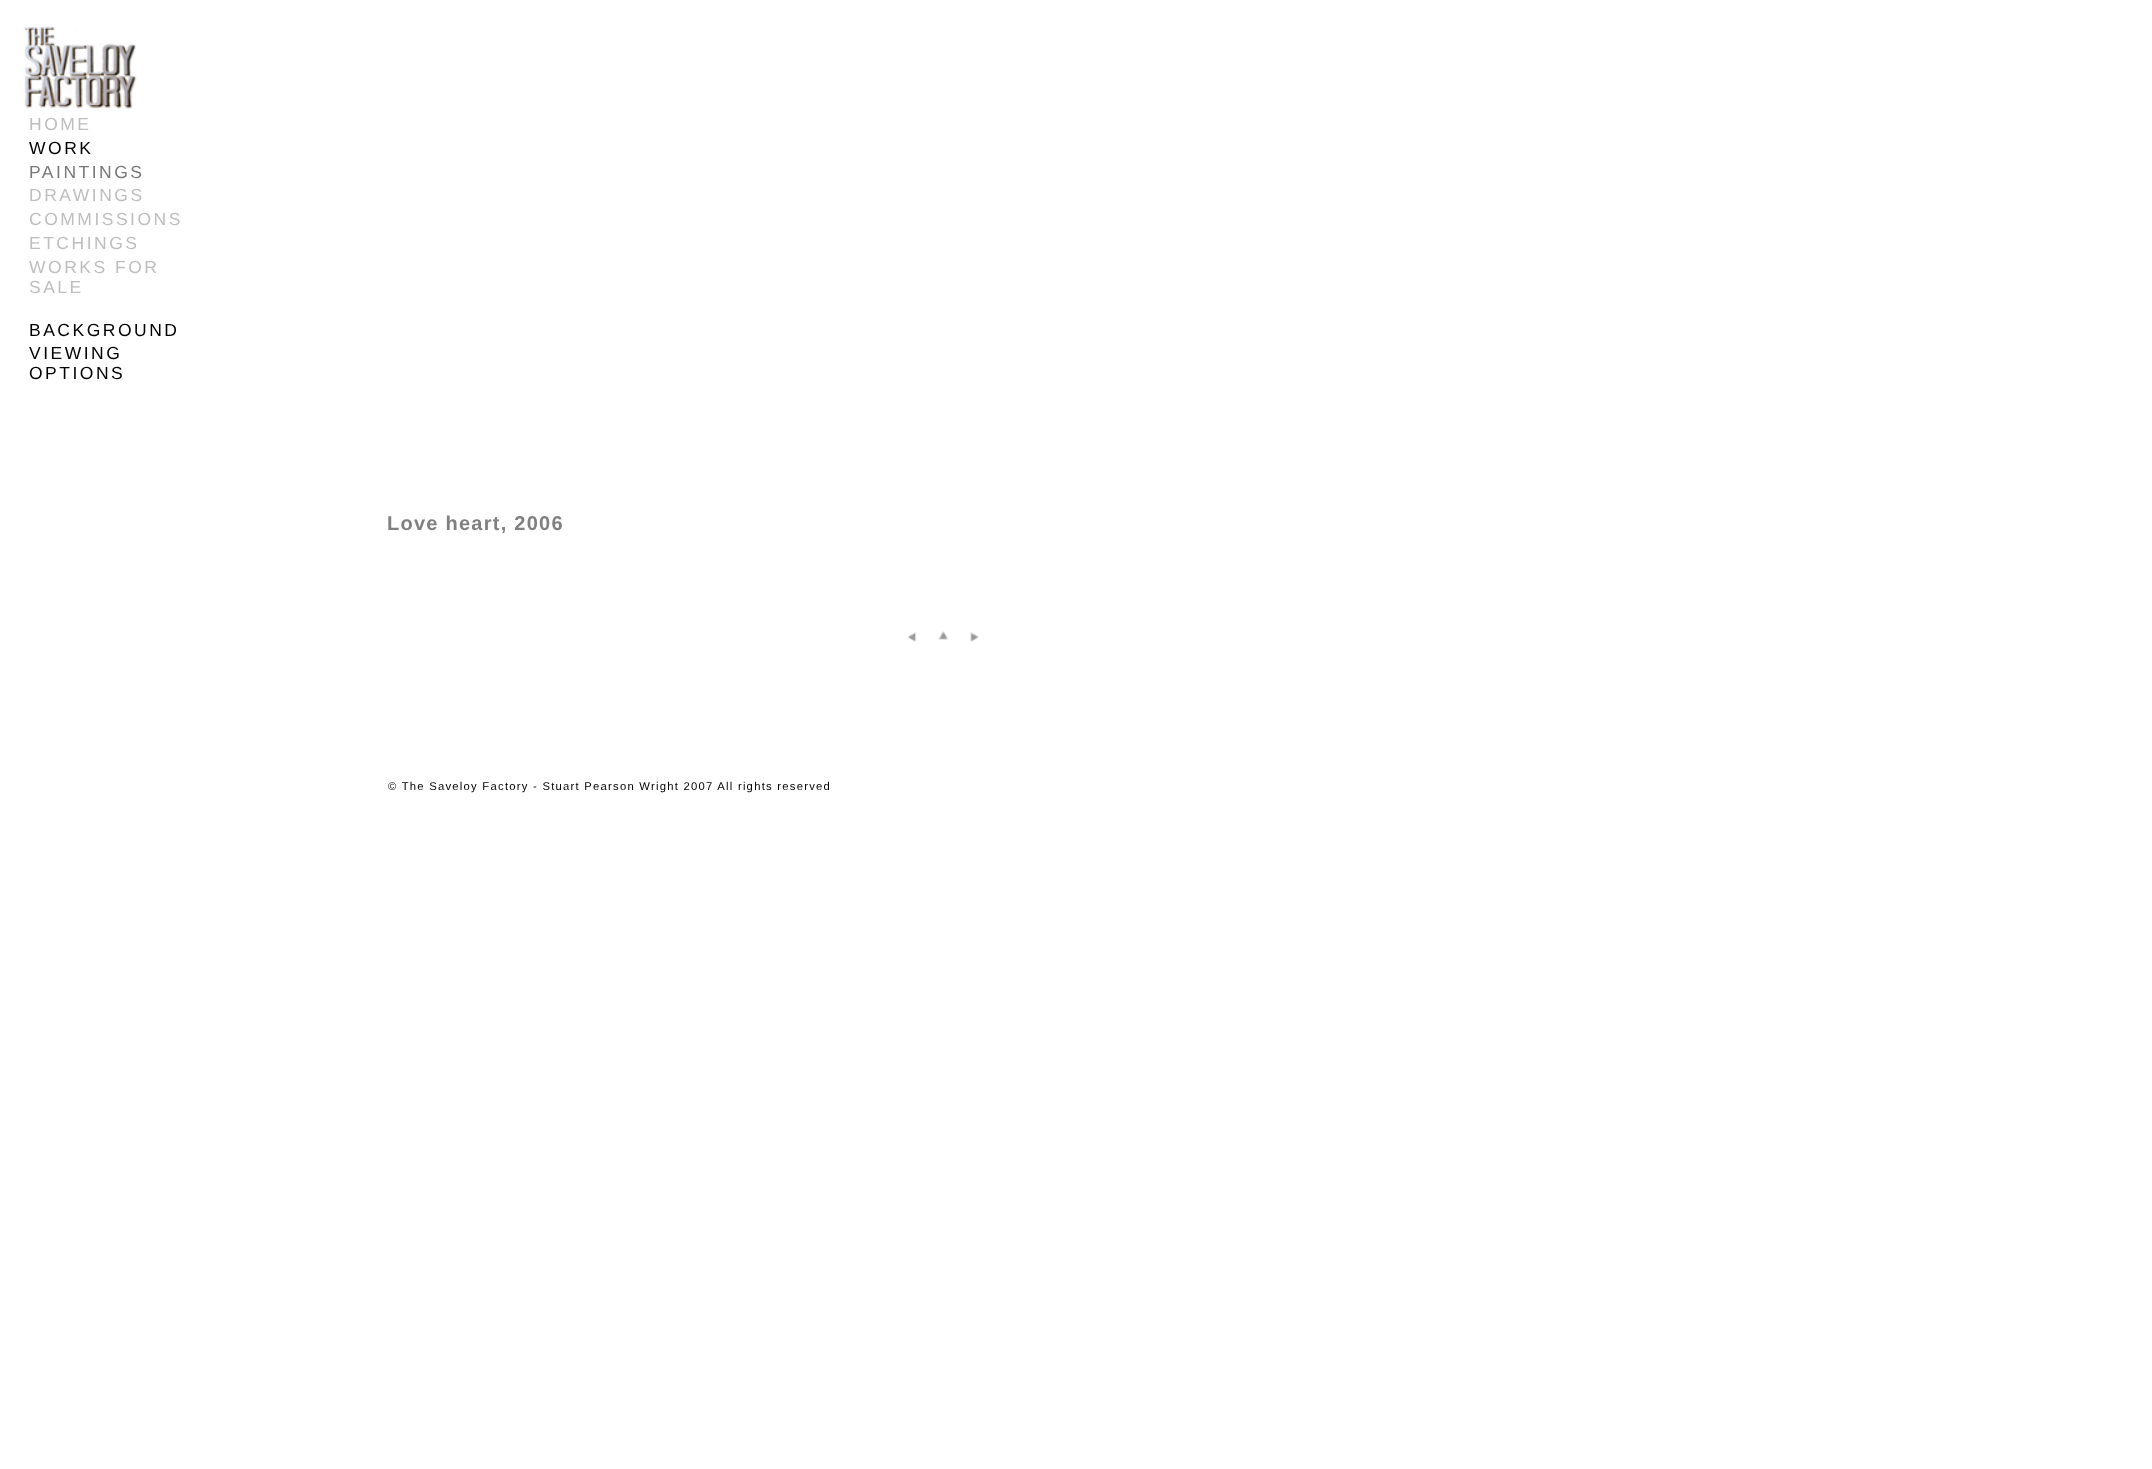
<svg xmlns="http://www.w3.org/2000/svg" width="2152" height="1469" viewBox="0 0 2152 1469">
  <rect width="100%" height="100%" fill="rgb(255,255,255)"/>
  <image x="23" y="26" width="114" height="83" href="pic1.png"/>
  <text x="29" y="130" font-family="Liberation Sans" font-size="17.5" letter-spacing="2.5" fill="rgb(190,190,190)">HOME</text>
  <text x="29" y="154" font-family="Liberation Sans" font-size="17.5" letter-spacing="2.5" fill="rgb(0,0,0)">WORK</text>
  <text x="29" y="178" font-family="Liberation Sans" font-size="17.5" letter-spacing="2.5" fill="rgb(120,120,120)">PAINTINGS</text>
  <g font-family="Liberation Sans" font-size="17.5" letter-spacing="2.5" fill="rgb(190,190,190)">
    <text>
      <tspan x="29" y="201">DRAWINGS</tspan>
      <tspan x="29" y="225">COMMISSIONS</tspan>
      <tspan x="29" y="249">ETCHINGS</tspan>
      <tspan x="29" y="273">WORKS FOR</tspan>
      <tspan x="29" y="293">SALE</tspan>
    </text>
  </g>
  <g font-family="Liberation Sans" font-size="17.5" letter-spacing="2.5" fill="rgb(0,0,0)">
    <text>
      <tspan x="29" y="336">BACKGROUND</tspan>
      <tspan x="29" y="359">VIEWING</tspan>
      <tspan x="29" y="379">OPTIONS</tspan>
    </text>
  </g>
  <text x="387" y="530" font-family="Liberation Sans" font-size="20" font-weight="bold" letter-spacing="1.25" fill="rgb(128,128,128)">Love heart, 2006</text>
  <image x="907" y="632" width="10" height="10" href="pic2.png"/>
  <image x="938" y="631" width="10" height="9" href="pic3.png"/>
  <image x="970" y="632" width="9" height="10" href="pic4.png"/>
  <text x="388" y="790" font-family="Liberation Sans" font-size="11.25" letter-spacing="1.25" fill="rgb(0,0,0)">© The Saveloy Factory - Stuart Pearson Wright 2007 All rights reserved</text>
</svg>
